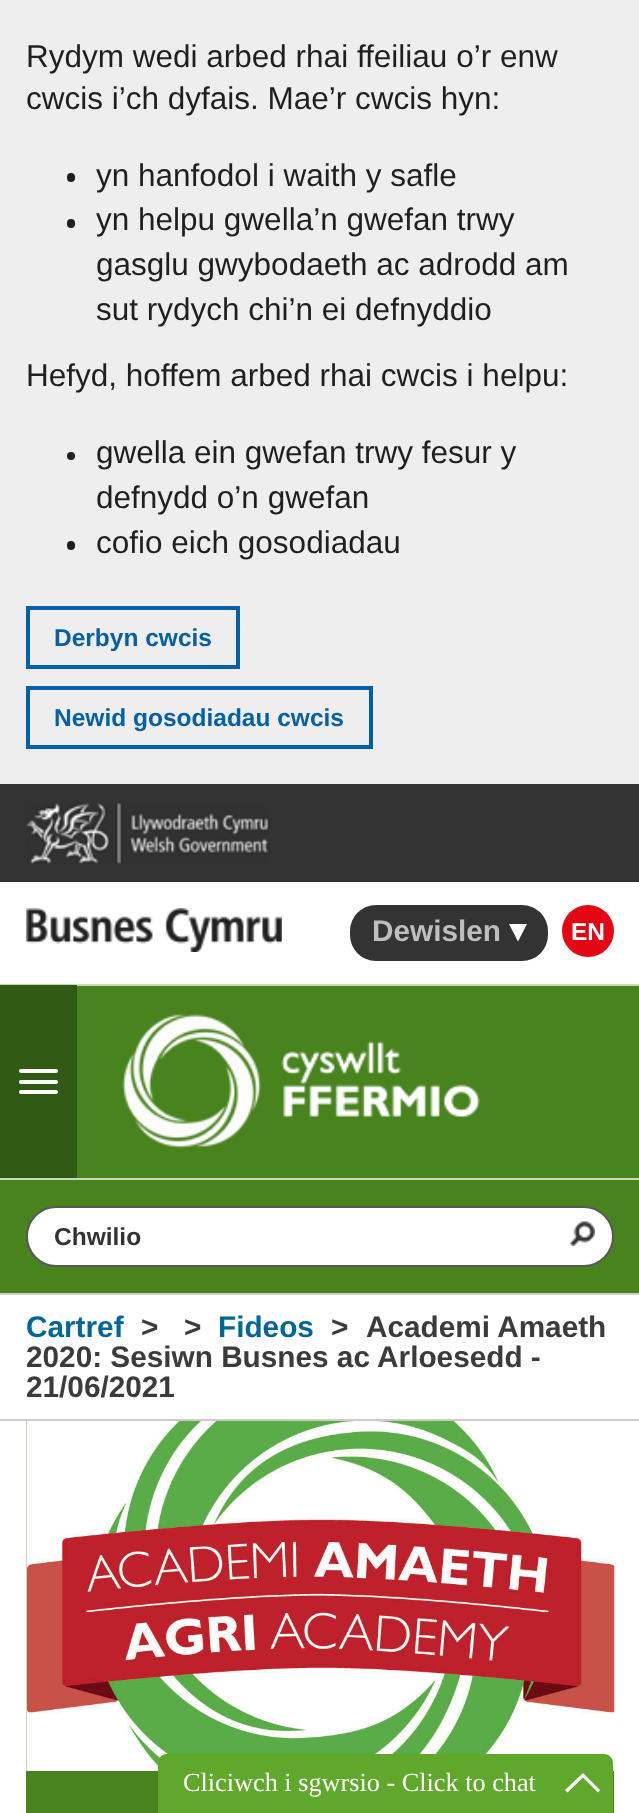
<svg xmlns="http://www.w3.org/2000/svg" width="639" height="1813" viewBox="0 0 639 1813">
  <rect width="100%" height="100%" fill="rgb(204,204,204)"/>
  <rect x="0" y="0" width="639" height="784" fill="rgb(238,238,238)"/>
  <g font-family="Liberation Sans" font-size="31.5" fill="rgb(31,31,31)">
    <text>
      <tspan x="26" y="67">Rydym wedi arbed rhai ffeiliau o’r enw</tspan>
      <tspan x="26" y="109">cwcis i’ch dyfais. Mae’r cwcis hyn:</tspan>
    </text>
  </g>
  <rect x="67" y="173" width="8" height="9" rx="4" fill="rgb(31,31,31)"/>
  <text x="96" y="186" font-family="Liberation Sans" font-size="31.5" fill="rgb(31,31,31)">yn hanfodol i waith y safle</text>
  <rect x="67" y="219" width="8" height="9" rx="4" fill="rgb(31,31,31)"/>
  <g font-family="Liberation Sans" font-size="31.5" fill="rgb(31,31,31)">
    <text>
      <tspan x="96" y="230">yn helpu gwella’n gwefan trwy</tspan>
      <tspan x="96" y="275">gasglu gwybodaeth ac adrodd am</tspan>
      <tspan x="96" y="320">sut rydych chi’n ei defnyddio</tspan>
    </text>
    <text x="26" y="386">Hefyd, hoffem arbed rhai cwcis i helpu:</text>
  </g>
  <circle cx="71" cy="456" r="4" fill="rgb(31,31,31)"/>
  <g font-family="Liberation Sans" font-size="31.5" fill="rgb(31,31,31)">
    <text>
      <tspan x="96" y="463">gwella ein gwefan trwy fesur y</tspan>
      <tspan x="96" y="508">defnydd o’n gwefan</tspan>
    </text>
  </g>
  <rect x="67" y="541" width="8" height="9" rx="4" fill="rgb(31,31,31)"/>
  <text x="96" y="553" font-family="Liberation Sans" font-size="31.5" fill="rgb(31,31,31)">cofio eich gosodiadau</text>
  <rect x="28" y="608" width="210" height="59" fill="none" stroke="rgb(3,96,166)" stroke-width="4"/>
  <text x="54" y="646" font-family="Liberation Sans" font-size="24.5" font-weight="bold" fill="rgb(3,96,166)">Derbyn cwcis</text>
  <rect x="28" y="688" width="343" height="59" fill="none" stroke="rgb(3,96,166)" stroke-width="4"/>
  <text x="54" y="726" font-family="Liberation Sans" font-size="24.5" font-weight="bold" fill="rgb(3,96,166)">Newid gosodiadau cwcis</text>
  <rect x="0" y="784" width="639" height="98" fill="rgb(51,51,51)"/>
  <image x="26" y="803" width="244" height="61" href="pic1.png"/>
  <rect x="0" y="882" width="639" height="102" fill="rgb(255,255,255)"/>
  <image x="26" y="908" width="256" height="44" href="pic2.png"/>
  <rect x="350" y="905" width="198" height="56" rx="26" fill="rgb(51,51,51)"/>
  <text x="372" y="941" font-family="Liberation Sans" font-size="29.75" font-weight="bold" fill="rgb(191,190,190)">Dewislen</text>
  <path d="M509 924H527L518 941.5Z" fill="rgb(255,255,255)"/>
  <circle cx="588" cy="931" r="26" fill="rgb(227,6,19)"/>
  <text x="571" y="940" font-family="Liberation Sans" font-size="24.5" font-weight="bold" fill="rgb(255,255,255)">EN</text>
  <rect x="0" y="986" width="639" height="307" fill="rgb(72,131,30)"/>
  <rect x="0" y="984" width="639" height="2" fill="rgb(200,218,188)"/>
  <rect x="0" y="985" width="77" height="193" fill="rgb(49,90,20)"/>
  <rect x="19" y="1069" width="39" height="4" rx="2" fill="rgb(255,255,255)"/>
  <rect x="19" y="1080" width="39" height="4" rx="2" fill="rgb(255,255,255)"/>
  <rect x="19" y="1090" width="39" height="4" rx="2" fill="rgb(255,255,255)"/>
  <image x="122" y="1013" width="358" height="136" href="pic3.png"/>
  <rect x="0" y="1178" width="639" height="2" fill="rgb(200,218,188)"/>
  <rect x="27" y="1207" width="586" height="59" rx="29.5" fill="rgb(255,255,255)" stroke="rgb(87,87,87)" stroke-width="2"/>
  <text x="54" y="1245" font-family="Liberation Sans" font-size="24.5" font-weight="bold" fill="rgb(51,51,51)">Chwilio</text>
  <image x="570" y="1221" width="25" height="25" href="pic4.png"/>
  <rect x="0" y="1295" width="639" height="124" fill="rgb(255,255,255)"/>
  <text x="26" y="1337" font-family="Liberation Sans" font-size="29.75" font-weight="bold" fill="rgb(0,102,153)">Cartref</text>
  <g font-family="Liberation Sans" font-size="29.75" font-weight="bold" fill="rgb(59,59,59)">
    <text x="141" y="1337">&gt;</text>
    <text x="184" y="1337">&gt;</text>
  </g>
  <text x="218" y="1337" font-family="Liberation Sans" font-size="29.75" font-weight="bold" fill="rgb(0,102,153)">Fideos</text>
  <g font-family="Liberation Sans" font-size="29.75" font-weight="bold" fill="rgb(59,59,59)">
    <text x="331" y="1337">&gt;</text>
    <text x="366" y="1337">Academi Amaeth</text>
    <text>
      <tspan x="26" y="1367">2020: Sesiwn Busnes ac Arloesedd -</tspan>
      <tspan x="26" y="1397">21/06/2021</tspan>
    </text>
  </g>
  <rect x="0" y="1421" width="639" height="392" fill="rgb(255,255,255)"/>
  <rect x="26" y="1421" width="588" height="392" fill="rgb(72,131,30)"/>
  <image x="26" y="1421" width="589" height="350" href="pic5.png"/>
  <path d="M167 1754H604C609 1754 613 1758 613 1763V1813H158V1763C158 1758 162 1754 167 1754Z" fill="rgb(95,168,44)"/>
  <text x="183" y="1791" font-family="Liberation Serif" font-size="26.25" fill="rgb(255,255,255)">Cliciwch i sgwrsio - Click to chat</text>
  <path d="M583 1773L600 1790L598 1792.5L583 1777.5L567.5 1792.5L565 1790Z" fill="rgb(255,255,255)"/>
</svg>
